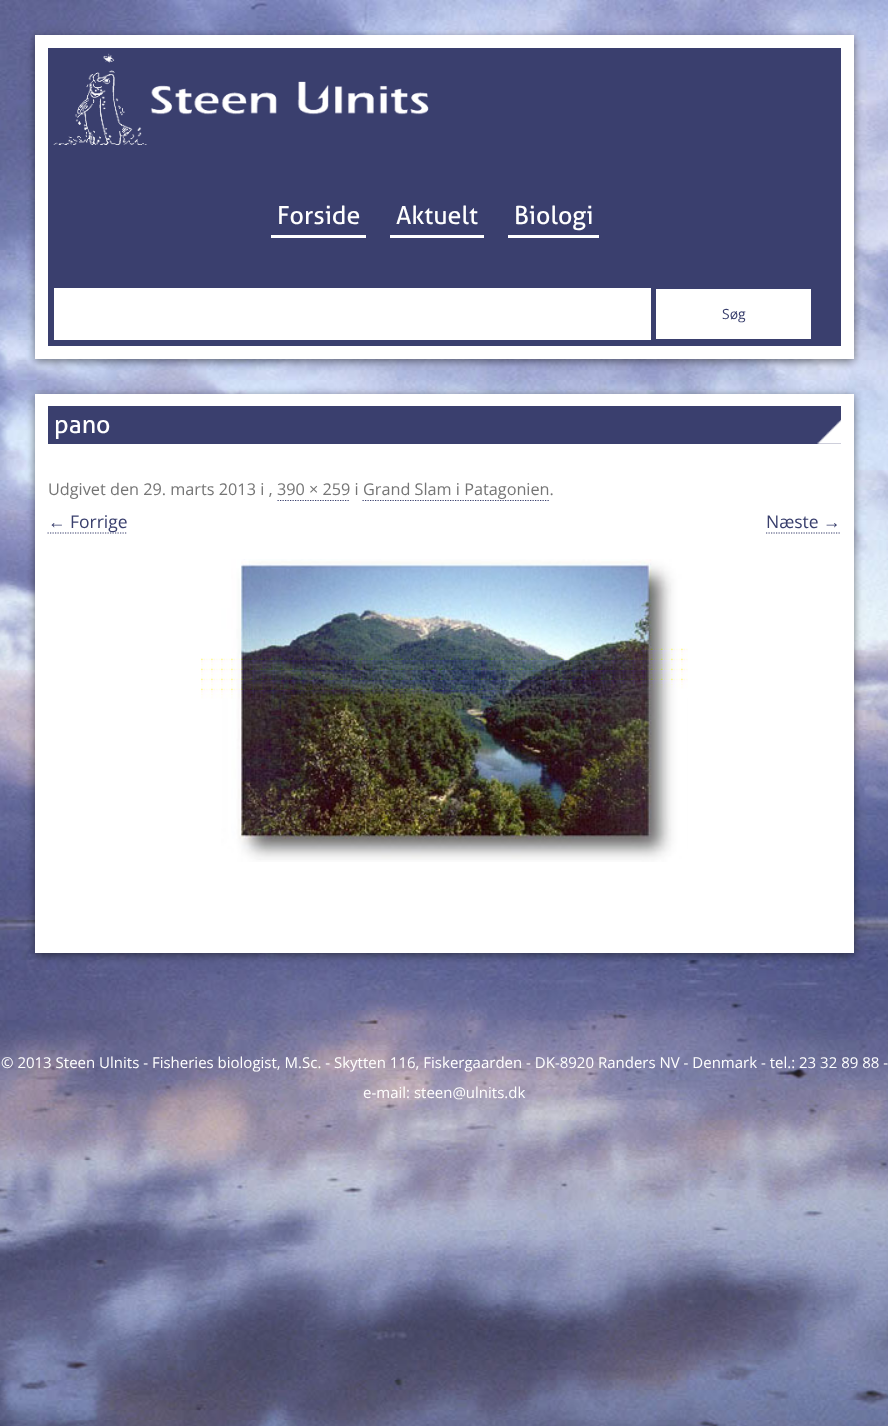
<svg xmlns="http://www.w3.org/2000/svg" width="888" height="1426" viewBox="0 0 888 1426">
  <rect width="100%" height="100%" fill="rgb(255,255,255)"/>
  <image x="0" y="0" width="888" height="1426" href="pic1.png"/>
  <rect x="35" y="38" width="819" height="323" fill="rgba(0,0,0,0.5)" filter="blur(4px)"/>
  <rect x="41.5" y="41.5" width="806" height="311" fill="rgb(58,63,110)" stroke="rgb(255,255,255)" stroke-width="13"/>
  <image x="53" y="53" width="376" height="92" href="pic2.png"/>
  <rect x="271" y="235" width="95" height="3" fill="rgb(255,255,255)"/>
  <text x="277" y="224" font-family="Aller" font-size="25" fill="rgb(255,255,255)">Forside</text>
  <rect x="390" y="235" width="94" height="3" fill="rgb(255,255,255)"/>
  <text x="396" y="224" font-family="Aller" font-size="25" fill="rgb(255,255,255)">Aktuelt</text>
  <rect x="508" y="235" width="91" height="3" fill="rgb(255,255,255)"/>
  <text x="514" y="224" font-family="Aller" font-size="25" fill="rgb(255,255,255)">Biologi</text>
  <rect x="54" y="288" width="597" height="52" fill="rgb(255,255,255)"/>
  <rect x="656" y="289" width="155" height="50" fill="rgb(255,255,255)"/>
  <text x="722" y="319" font-family="Open Sans" font-size="14" fill="rgb(57,63,109)">Søg</text>
  <rect x="35" y="396" width="819" height="559" fill="rgba(0,0,0,0.5)" filter="blur(4px)"/>
  <rect x="35" y="394" width="819" height="559" fill="rgb(255,255,255)"/>
  <rect x="48" y="406" width="793" height="38" fill="rgb(58,63,110)"/>
  <image x="817" y="419" width="24" height="25" href="pic3.png"/>
  <text x="54" y="433" font-family="Aller" font-size="25" fill="rgb(255,255,255)">pano</text>
  <text x="48" y="495" font-family="Open Sans" font-size="16.25" fill="rgb(117,117,117)">Udgivet den 29. marts 2013 i , 390 × 259 i Grand Slam i Patagonien.</text>
  <path d="M277.5 500.5H350" fill="none" stroke="rgb(57,63,109)" stroke-width="1.2" stroke-dasharray="1.25 1.25"/>
  <path d="M362.5 500.5H550" fill="none" stroke="rgb(57,63,109)" stroke-width="1.2" stroke-dasharray="1.25 1.25"/>
  <text x="48" y="528" font-family="Liberation Sans" font-size="17.5" fill="rgb(57,63,109)">←</text>
  <path d="M47.5 533H127.5" fill="none" stroke="rgb(57,63,109)" stroke-width="1.2" stroke-dasharray="1.25 1.25"/>
  <g font-family="Open Sans" font-size="17.5" fill="rgb(57,63,109)">
    <text x="70" y="528">Forrige</text>
    <text x="766" y="528">Næste</text>
  </g>
  <text x="823" y="528" font-family="Liberation Sans" font-size="17.5" fill="rgb(57,63,109)">→</text>
  <path d="M766 533H841" fill="none" stroke="rgb(57,63,109)" stroke-width="1.2" stroke-dasharray="1.25 1.25"/>
  <image x="201" y="559" width="487" height="303" href="pic4.png"/>
  <g font-family="Open Sans" font-size="15" fill="rgb(255,255,255)">
    <text x="1" y="1068">© 2013 Steen Ulnits - Fisheries biologist, M.Sc. - Skytten 116, Fiskergaarden - DK-8920 Randers NV - Denmark - tel.: 23 32 89 88 -</text>
    <text x="363" y="1098">e-mail: steen@ulnits.dk</text>
  </g>
</svg>
